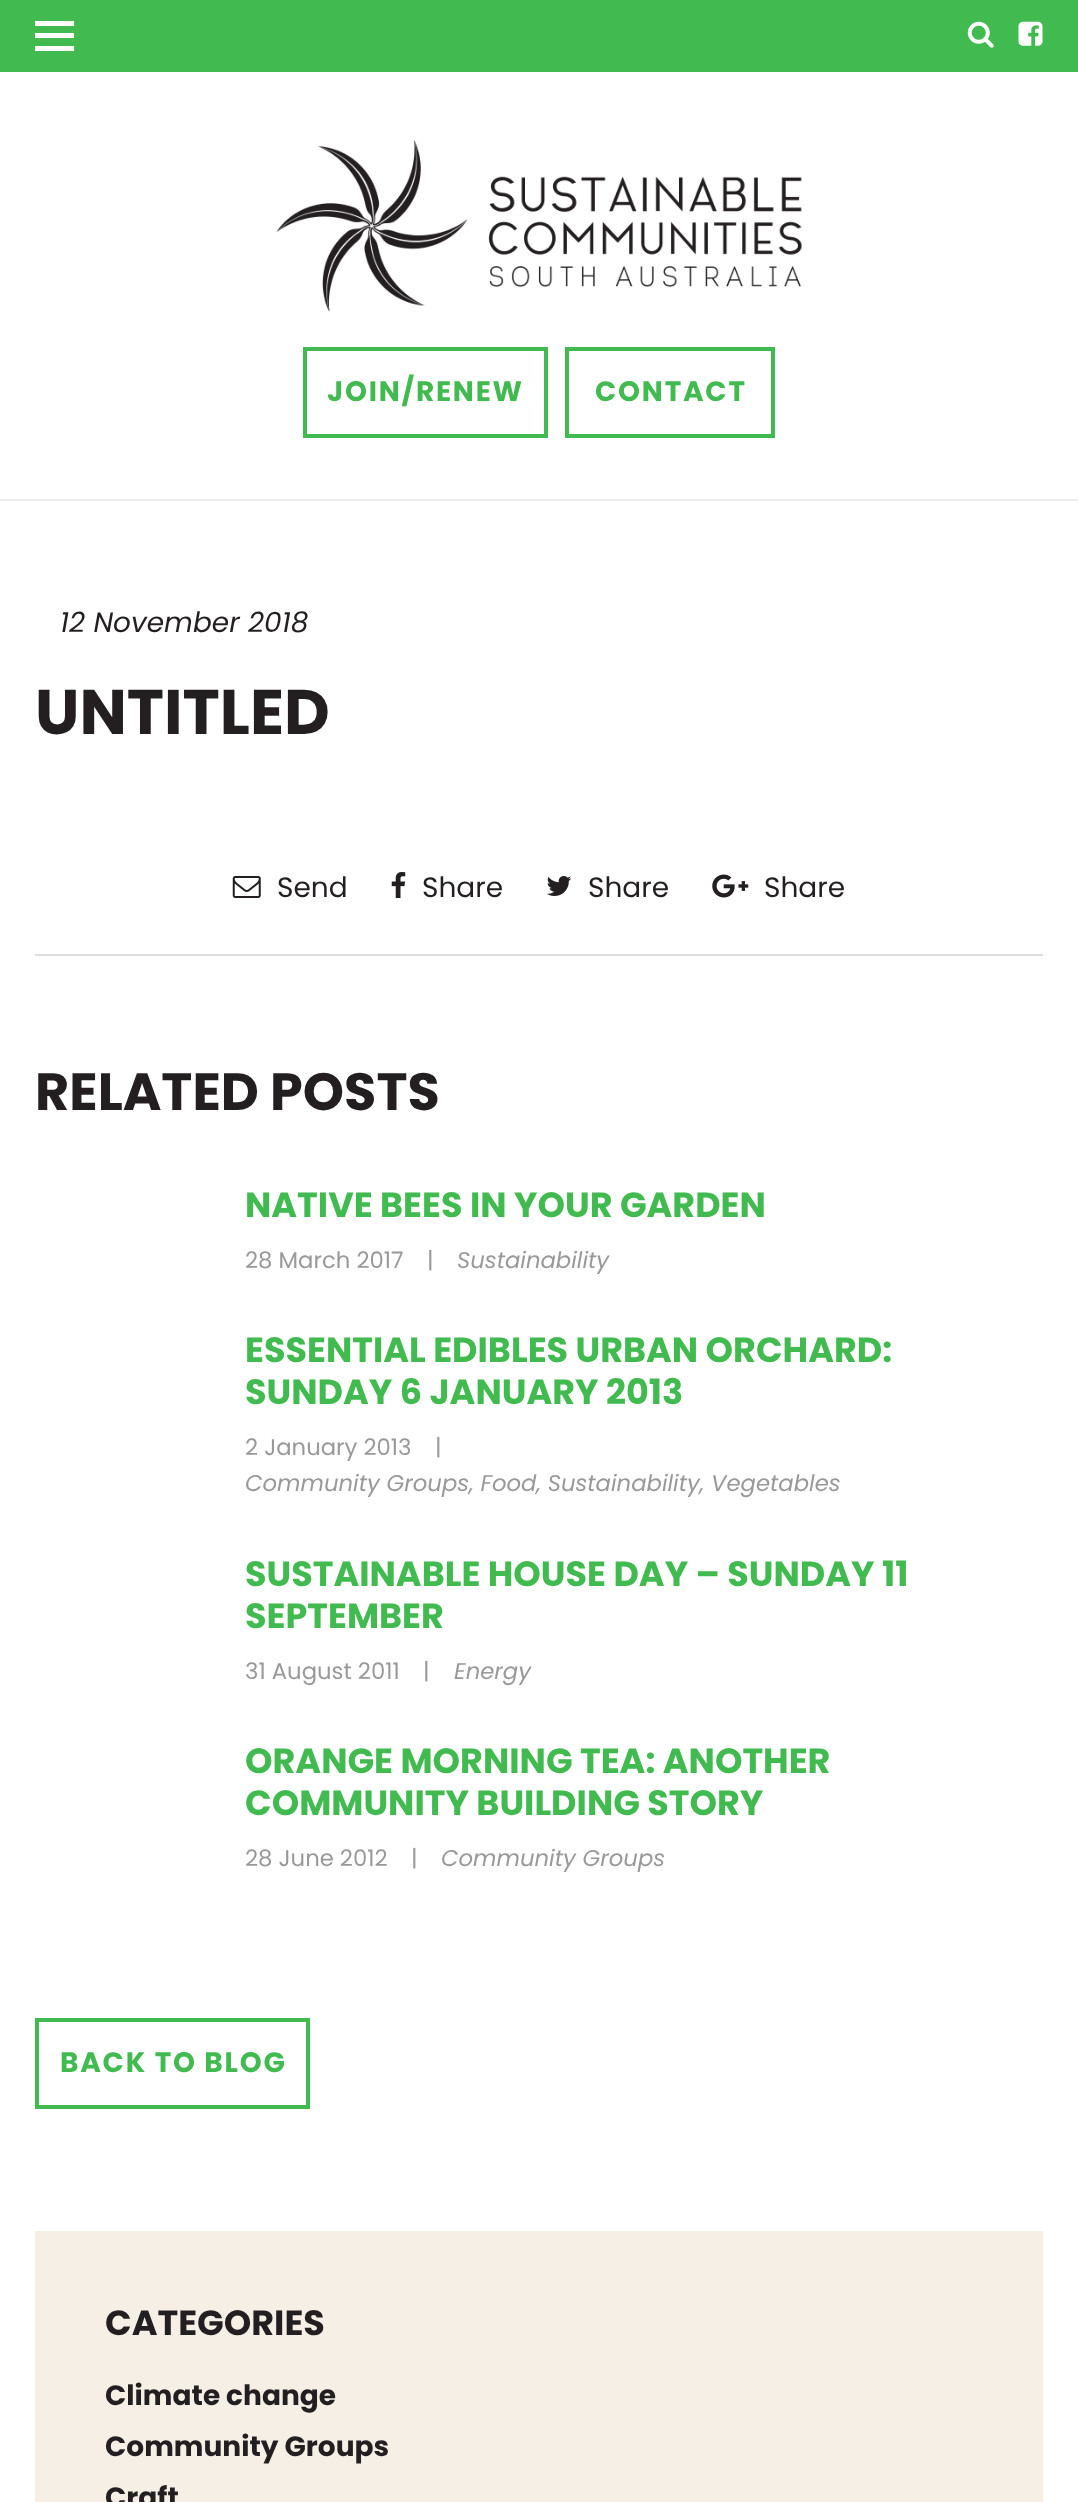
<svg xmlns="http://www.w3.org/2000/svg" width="1078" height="2502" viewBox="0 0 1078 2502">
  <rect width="100%" height="100%" fill="rgb(255,255,255)"/>
  <rect x="0" y="499" width="1078" height="2" fill="rgb(238,238,238)"/>
  <rect x="0" y="0" width="1078" height="72" fill="rgb(65,186,79)"/>
  <rect x="35" y="21" width="39" height="5" fill="rgb(255,255,255)"/>
  <rect x="35" y="33" width="39" height="5" fill="rgb(255,255,255)"/>
  <rect x="35" y="46" width="39" height="5" fill="rgb(255,255,255)"/>
  <image x="967" y="21" width="27" height="27" href="pic1.png"/>
  <image x="1018" y="21" width="25" height="25" href="pic2.png"/>
  <image x="276" y="140" width="526" height="172" href="pic3.png"/>
  <rect x="305" y="349" width="241" height="87" fill="none" stroke="rgb(65,186,79)" stroke-width="4"/>
  <text x="327" y="401" font-family="Poppins" font-size="28" font-weight="bold" letter-spacing="1.75" fill="rgb(65,186,79)">JOIN/RENEW</text>
  <rect x="567" y="349" width="206" height="87" fill="none" stroke="rgb(65,186,79)" stroke-width="4"/>
  <text x="595" y="401" font-family="Poppins" font-size="28" font-weight="bold" letter-spacing="1.75" fill="rgb(65,186,79)">CONTACT</text>
  <text x="60" y="632" font-family="Poppins" font-size="28" font-style="italic" fill="rgb(35,31,32)">12 November 2018</text>
  <text x="35" y="734" font-family="Poppins" font-size="63" font-weight="bold" fill="rgb(35,31,32)">UNTITLED</text>
  <rect x="35" y="954" width="1008" height="2" fill="rgb(221,221,221)"/>
  <image x="232" y="876" width="29" height="22" href="pic4.png"/>
  <text x="277" y="897" font-family="Poppins" font-size="28" fill="rgb(35,31,32)">Send</text>
  <image x="391" y="872" width="15" height="26" href="pic5.png"/>
  <text x="422" y="897" font-family="Poppins" font-size="28" fill="rgb(35,31,32)">Share</text>
  <image x="546" y="876" width="26" height="20" href="pic6.png"/>
  <text x="588" y="897" font-family="Poppins" font-size="28" fill="rgb(35,31,32)">Share</text>
  <image x="712" y="874" width="37" height="24" href="pic7.png"/>
  <text x="764" y="897" font-family="Poppins" font-size="28" fill="rgb(35,31,32)">Share</text>
  <text x="35" y="1110" font-family="Poppins" font-size="52.5" font-weight="bold" fill="rgb(35,31,32)">RELATED POSTS</text>
  <text x="245" y="1217" font-family="Poppins" font-size="35" font-weight="bold" fill="rgb(65,186,79)">NATIVE BEES IN YOUR GARDEN</text>
  <g font-family="Poppins" font-size="22.75" fill="rgb(153,153,153)">
    <text x="245" y="1268">28 March 2017</text>
    <text x="427" y="1268">|</text>
  </g>
  <text x="457" y="1268" font-family="Poppins" font-size="22.75" font-style="italic" fill="rgb(153,153,153)">Sustainability</text>
  <g font-family="Poppins" font-size="35" font-weight="bold" fill="rgb(65,186,79)">
    <text>
      <tspan x="245" y="1362">ESSENTIAL EDIBLES URBAN ORCHARD:</tspan>
      <tspan x="245" y="1404">SUNDAY 6 JANUARY 2013</tspan>
    </text>
  </g>
  <g font-family="Poppins" font-size="22.75" fill="rgb(153,153,153)">
    <text x="245" y="1455">2 January 2013</text>
    <text x="435" y="1455">|</text>
  </g>
  <text x="245" y="1491" font-family="Poppins" font-size="22.75" font-style="italic" fill="rgb(153,153,153)">Community Groups, Food, Sustainability, Vegetables</text>
  <g font-family="Poppins" font-size="35" font-weight="bold" fill="rgb(65,186,79)">
    <text>
      <tspan x="245" y="1586">SUSTAINABLE HOUSE DAY – SUNDAY 11</tspan>
      <tspan x="245" y="1628">SEPTEMBER</tspan>
    </text>
  </g>
  <g font-family="Poppins" font-size="22.75" fill="rgb(153,153,153)">
    <text x="245" y="1679">31 August 2011</text>
    <text x="423" y="1679">|</text>
  </g>
  <text x="454" y="1679" font-family="Poppins" font-size="22.75" font-style="italic" fill="rgb(153,153,153)">Energy</text>
  <g font-family="Poppins" font-size="35" font-weight="bold" fill="rgb(65,186,79)">
    <text>
      <tspan x="245" y="1773">ORANGE MORNING TEA: ANOTHER</tspan>
      <tspan x="245" y="1815">COMMUNITY BUILDING STORY</tspan>
    </text>
  </g>
  <g font-family="Poppins" font-size="22.75" fill="rgb(153,153,153)">
    <text x="245" y="1866">28 June 2012</text>
    <text x="411" y="1866">|</text>
  </g>
  <text x="441" y="1866" font-family="Poppins" font-size="22.75" font-style="italic" fill="rgb(153,153,153)">Community Groups</text>
  <rect x="37" y="2020" width="271" height="87" fill="none" stroke="rgb(65,186,79)" stroke-width="4"/>
  <text x="60" y="2072" font-family="Poppins" font-size="28" font-weight="bold" letter-spacing="1.75" fill="rgb(65,186,79)">BACK TO BLOG</text>
  <rect x="35" y="2231" width="1008" height="271" fill="rgb(245,239,230)"/>
  <text x="105" y="2335" font-family="Poppins" font-size="35" font-weight="bold" fill="rgb(35,31,32)">CATEGORIES</text>
  <g font-family="Poppins" font-size="28" font-weight="bold" fill="rgb(35,31,32)">
    <text>
      <tspan x="105" y="2405">Climate change</tspan>
      <tspan x="105" y="2456">Community Groups</tspan>
      <tspan x="105" y="2507">Craft</tspan>
    </text>
  </g>
</svg>
